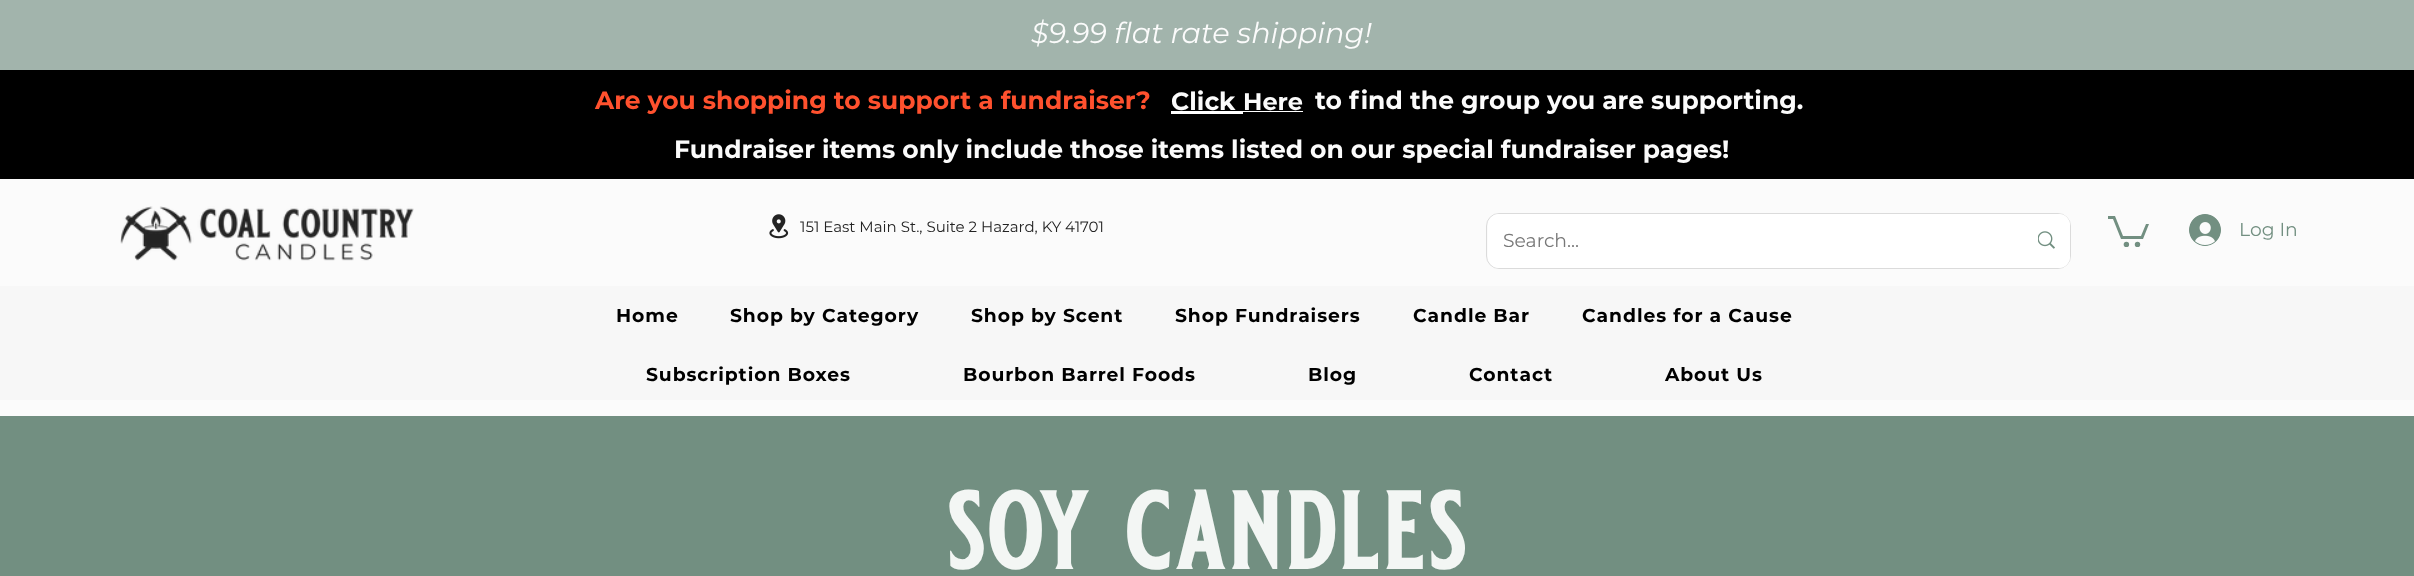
<svg xmlns="http://www.w3.org/2000/svg" width="2414" height="576" viewBox="0 0 2414 576">
  <rect width="100%" height="100%" fill="rgb(251,251,251)"/>
  <rect x="0" y="0" width="2414" height="70" fill="rgb(162,180,172)"/>
  <text x="1031" y="43" font-family="Montserrat" font-size="28.75" font-style="italic" fill="rgb(251,251,251)">$9.99 flat rate shipping!</text>
  <rect x="0" y="70" width="2414" height="109" fill="rgb(0,0,0)"/>
  <text x="595" y="109" font-family="Montserrat" font-size="25" font-weight="bold" fill="rgb(255,81,46)">Are you shopping to support a fundraiser?</text>
  <text x="1171" y="110" font-family="Montserrat" font-size="25" font-weight="bold" fill="rgb(251,251,251)">Click</text>
  <text x="1243" y="110" font-family="Montserrat" font-size="24" font-weight="bold" fill="rgb(251,251,251)">Here</text>
  <rect x="1171" y="111" width="72" height="3" fill="rgb(255,255,255)"/>
  <rect x="1243" y="111" width="60" height="1" fill="rgb(255,255,255)"/>
  <g font-family="Montserrat" font-size="25" font-weight="bold" fill="rgb(251,251,251)">
    <text x="1315" y="109">to find the group you are supporting.</text>
    <text x="674" y="158">Fundraiser items only include those items listed on our special fundraiser pages!</text>
  </g>
  <image x="120" y="206" width="294" height="55" href="pic1.png"/>
  <image x="769" y="214" width="20" height="25" href="pic2.png"/>
  <text x="800" y="232" font-family="Montserrat" font-size="15" fill="rgb(35,35,35)">151 East Main St., Suite 2 Hazard, KY 41701</text>
  <rect x="1486.5" y="213.5" width="584" height="55" rx="12.5" fill="none" stroke="rgb(219,219,219)"/>
  <rect x="1488" y="214" width="582" height="54" rx="11" fill="rgb(255,255,255)"/>
  <text x="1503" y="247" font-family="Montserrat" font-size="18.75" fill="rgb(120,120,120)">Search...</text>
  <image x="2038" y="231" width="17" height="18" href="pic3.png"/>
  <path d="M2149 224L2143 239H2121L2113 219H2108V216H2115L2123 236H2141L2146 224" fill="rgb(114,143,129)"/>
  <circle cx="2137.5" cy="244.4" r="2.7" fill="rgb(114,143,129)"/>
  <circle cx="2126.4" cy="244.4" r="2.7" fill="rgb(114,143,129)"/>
  <image x="2189" y="214" width="32" height="32" href="pic4.png"/>
  <text x="2239" y="236" font-family="Montserrat" font-size="18.75" fill="rgb(114,143,129)">Log In</text>
  <rect x="0" y="286" width="2414" height="114" fill="rgb(247,247,247)"/>
  <g font-family="Montserrat" font-size="18.75" font-weight="bold" letter-spacing="0.9" fill="rgb(0,0,0)">
    <text x="616" y="322">Home</text>
    <text x="730" y="322">Shop by Category</text>
    <text x="971" y="322">Shop by Scent</text>
    <text x="1175" y="322">Shop Fundraisers</text>
    <text x="1413" y="322">Candle Bar</text>
    <text x="1582" y="322">Candles for a Cause</text>
    <text x="646" y="381">Subscription Boxes</text>
    <text x="963" y="381">Bourbon Barrel Foods</text>
    <text x="1308" y="381">Blog</text>
    <text x="1469" y="381">Contact</text>
    <text x="1665" y="381">About Us</text>
  </g>
  <rect x="0" y="416" width="2414" height="160" fill="rgb(114,143,129)"/>
  <text x="946" y="569" font-family="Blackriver" font-size="112.5" font-weight="bold" fill="rgb(243,246,244)">soy candles</text>
</svg>
